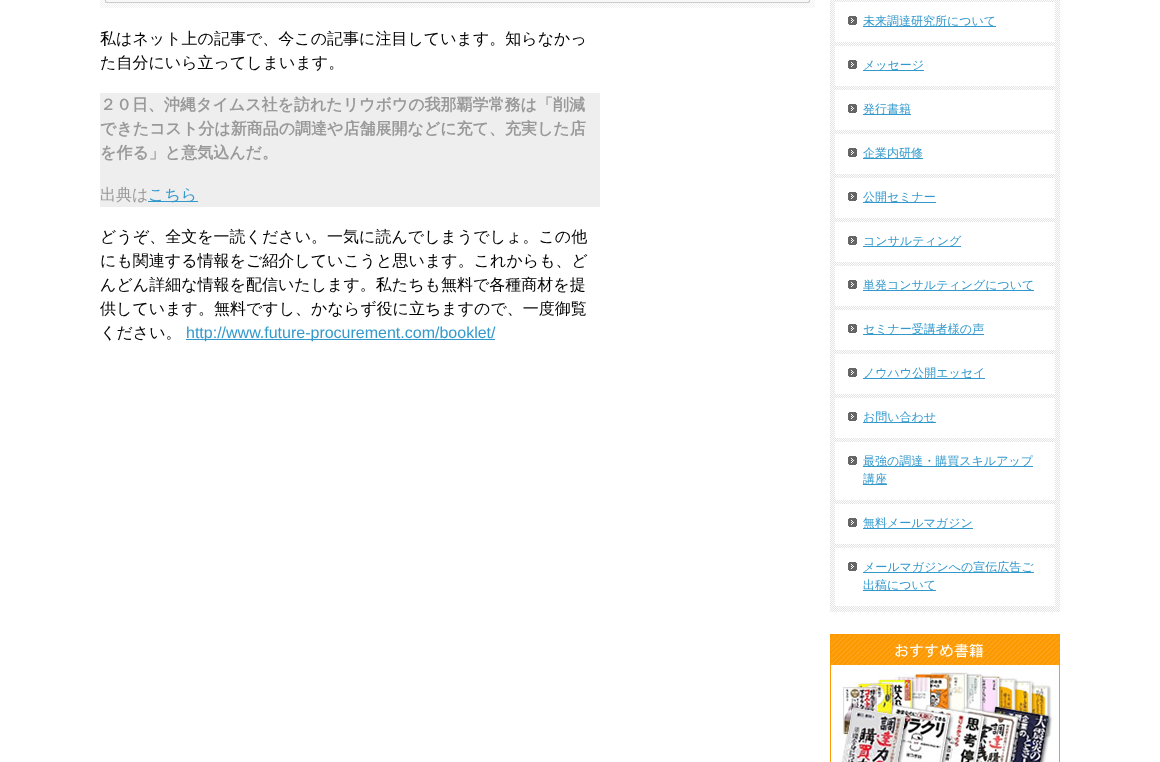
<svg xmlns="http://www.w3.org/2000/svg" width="1160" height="762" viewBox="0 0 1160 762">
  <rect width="100%" height="100%" fill="rgb(255,255,255)"/>
  <image x="100" y="0" width="715" height="8" href="pic1.png"/>
  <g font-family="WenQuanYi Zen Hei" font-size="16" font-weight="500" fill="rgb(0,0,0)">
    <text>
      <tspan x="100" y="44">私はネット上の記事で、今この記事に注目しています。知らなかっ</tspan>
      <tspan x="100" y="68">た自分にいら立ってしまいます。</tspan>
    </text>
  </g>
  <rect x="100" y="93" width="500" height="114" fill="rgb(238,238,238)"/>
  <g font-family="WenQuanYi Zen Hei" font-size="16" font-weight="bold" fill="rgb(153,153,153)">
    <text>
      <tspan x="100" y="110">２０日、沖縄タイムス社を訪れたリウボウの我那覇学常務は「削減</tspan>
      <tspan x="100" y="134">できたコスト分は新商品の調達や店舗展開などに充て、充実した店</tspan>
      <tspan x="100" y="158">を作る」と意気込んだ。</tspan>
    </text>
  </g>
  <text x="100" y="200" font-family="WenQuanYi Zen Hei" font-size="16" font-weight="500" fill="rgb(153,153,153)">出典は</text>
  <rect x="148" y="201" width="50" height="1" fill="rgb(51,153,204)"/>
  <text x="148" y="200" font-family="WenQuanYi Zen Hei" font-size="16" font-weight="500" fill="rgb(51,153,204)">こちら</text>
  <g font-family="WenQuanYi Zen Hei" font-size="16" font-weight="500" fill="rgb(0,0,0)">
    <text>
      <tspan x="100" y="242">どうぞ、全文を一読ください。一気に読んでしまうでしょ。この他</tspan>
      <tspan x="100" y="266">にも関連する情報をご紹介していこうと思います。これからも、ど</tspan>
      <tspan x="100" y="290">んどん詳細な情報を配信いたします。私たちも無料で各種商材を提</tspan>
      <tspan x="100" y="314">供しています。無料ですし、かならず役に立ちますので、一度御覧</tspan>
      <tspan x="100" y="338">ください。</tspan>
    </text>
  </g>
  <rect x="186" y="339" width="309" height="1" fill="rgb(51,153,204)"/>
  <text x="186" y="338" font-family="Liberation Sans" font-size="16" fill="rgb(51,153,204)">http://www.future-procurement.com/booklet/</text>
  <image x="830" y="0" width="230" height="612" href="pic2.png"/>
  <rect x="835" y="2" width="220" height="40" fill="rgb(255,255,255)"/>
  <image x="848" y="16" width="9" height="9" href="pic3.png"/>
  <rect x="863" y="26" width="133" height="1" fill="rgb(51,153,204)"/>
  <text x="863" y="25" font-family="WenQuanYi Zen Hei" font-size="12" font-weight="500" fill="rgb(51,153,204)">未来調達研究所について</text>
  <rect x="835" y="46" width="220" height="40" fill="rgb(255,255,255)"/>
  <image x="848" y="60" width="9" height="9" href="pic3.png"/>
  <rect x="863" y="70" width="61" height="1" fill="rgb(51,153,204)"/>
  <text x="863" y="69" font-family="WenQuanYi Zen Hei" font-size="12" font-weight="500" fill="rgb(51,153,204)">メッセージ</text>
  <rect x="835" y="90" width="220" height="40" fill="rgb(255,255,255)"/>
  <image x="848" y="104" width="9" height="9" href="pic3.png"/>
  <rect x="863" y="114" width="48" height="1" fill="rgb(51,153,204)"/>
  <text x="863" y="113" font-family="WenQuanYi Zen Hei" font-size="12" font-weight="500" fill="rgb(51,153,204)">発行書籍</text>
  <rect x="835" y="134" width="220" height="40" fill="rgb(255,255,255)"/>
  <image x="848" y="148" width="9" height="9" href="pic3.png"/>
  <rect x="863" y="158" width="60" height="1" fill="rgb(51,153,204)"/>
  <text x="863" y="157" font-family="WenQuanYi Zen Hei" font-size="12" font-weight="500" fill="rgb(51,153,204)">企業内研修</text>
  <rect x="835" y="178" width="220" height="40" fill="rgb(255,255,255)"/>
  <image x="848" y="192" width="9" height="9" href="pic3.png"/>
  <rect x="863" y="202" width="73" height="1" fill="rgb(51,153,204)"/>
  <text x="863" y="201" font-family="WenQuanYi Zen Hei" font-size="12" font-weight="500" fill="rgb(51,153,204)">公開セミナー</text>
  <rect x="835" y="222" width="220" height="40" fill="rgb(255,255,255)"/>
  <image x="848" y="236" width="9" height="9" href="pic3.png"/>
  <rect x="863" y="246" width="98" height="1" fill="rgb(51,153,204)"/>
  <text x="863" y="245" font-family="WenQuanYi Zen Hei" font-size="12" font-weight="500" fill="rgb(51,153,204)">コンサルティング</text>
  <rect x="835" y="266" width="220" height="40" fill="rgb(255,255,255)"/>
  <image x="848" y="280" width="9" height="9" href="pic3.png"/>
  <rect x="863" y="290" width="171" height="1" fill="rgb(51,153,204)"/>
  <text x="863" y="289" font-family="WenQuanYi Zen Hei" font-size="12" font-weight="500" fill="rgb(51,153,204)">単発コンサルティングについて</text>
  <rect x="835" y="310" width="220" height="40" fill="rgb(255,255,255)"/>
  <image x="848" y="324" width="9" height="9" href="pic3.png"/>
  <rect x="863" y="334" width="121" height="1" fill="rgb(51,153,204)"/>
  <text x="863" y="333" font-family="WenQuanYi Zen Hei" font-size="12" font-weight="500" fill="rgb(51,153,204)">セミナー受講者様の声</text>
  <rect x="835" y="354" width="220" height="40" fill="rgb(255,255,255)"/>
  <image x="848" y="368" width="9" height="9" href="pic3.png"/>
  <rect x="863" y="378" width="122" height="1" fill="rgb(51,153,204)"/>
  <text x="863" y="377" font-family="WenQuanYi Zen Hei" font-size="12" font-weight="500" fill="rgb(51,153,204)">ノウハウ公開エッセイ</text>
  <rect x="835" y="398" width="220" height="40" fill="rgb(255,255,255)"/>
  <image x="848" y="412" width="9" height="9" href="pic3.png"/>
  <rect x="863" y="422" width="73" height="1" fill="rgb(51,153,204)"/>
  <text x="863" y="421" font-family="WenQuanYi Zen Hei" font-size="12" font-weight="500" fill="rgb(51,153,204)">お問い合わせ</text>
  <rect x="835" y="442" width="220" height="58" fill="rgb(255,255,255)"/>
  <image x="848" y="456" width="9" height="9" href="pic3.png"/>
  <rect x="863" y="466" width="170" height="1" fill="rgb(51,153,204)"/>
  <text x="863" y="465" font-family="WenQuanYi Zen Hei" font-size="12" font-weight="500" fill="rgb(51,153,204)">最強の調達・購買スキルアップ</text>
  <rect x="863" y="484" width="24" height="1" fill="rgb(51,153,204)"/>
  <text x="863" y="483" font-family="WenQuanYi Zen Hei" font-size="12" font-weight="500" fill="rgb(51,153,204)">講座</text>
  <rect x="835" y="504" width="220" height="40" fill="rgb(255,255,255)"/>
  <image x="848" y="518" width="9" height="9" href="pic3.png"/>
  <rect x="863" y="528" width="110" height="1" fill="rgb(51,153,204)"/>
  <text x="863" y="527" font-family="WenQuanYi Zen Hei" font-size="12" font-weight="500" fill="rgb(51,153,204)">無料メールマガジン</text>
  <rect x="835" y="548" width="220" height="58" fill="rgb(255,255,255)"/>
  <image x="848" y="562" width="9" height="9" href="pic3.png"/>
  <rect x="863" y="572" width="171" height="1" fill="rgb(51,153,204)"/>
  <text x="863" y="571" font-family="WenQuanYi Zen Hei" font-size="12" font-weight="500" fill="rgb(51,153,204)">メールマガジンへの宣伝広告ご</text>
  <rect x="863" y="590" width="73" height="1" fill="rgb(51,153,204)"/>
  <text x="863" y="589" font-family="WenQuanYi Zen Hei" font-size="12" font-weight="500" fill="rgb(51,153,204)">出稿について</text>
  <image x="830" y="634" width="230" height="128" href="pic4.png"/>
</svg>
